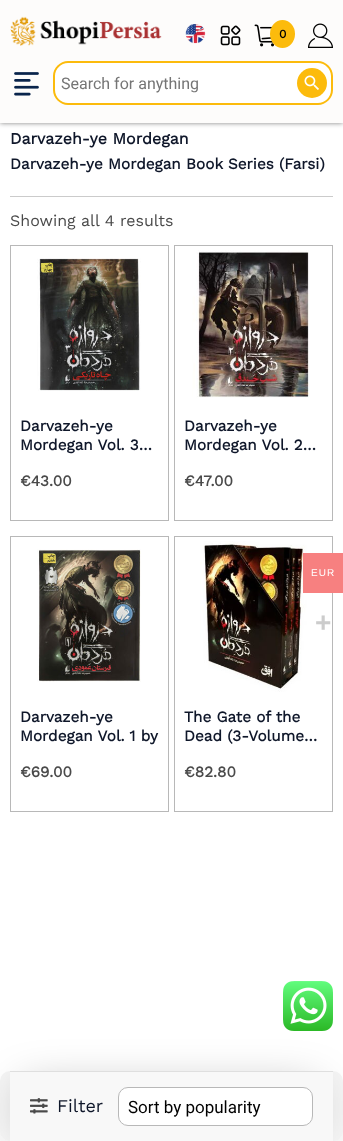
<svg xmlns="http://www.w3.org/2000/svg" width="343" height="1141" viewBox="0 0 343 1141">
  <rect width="100%" height="100%" fill="rgb(255,255,255)"/>
  <rect x="0" y="0" width="343" height="123" fill="rgba(0,0,0,0.5)" filter="blur(2.5px)"/>
  <rect x="0" y="0" width="343" height="123" fill="rgb(253,252,251)"/>
  <image x="10" y="16" width="152" height="30" href="pic1.png"/>
  <image x="185" y="24" width="21" height="20" href="pic2.png"/>
  <image x="220" y="25" width="21" height="21" href="pic3.png"/>
  <image x="254" y="24" width="20" height="23" href="pic4.png"/>
  <ellipse cx="282.5" cy="34" rx="12.5" ry="14" fill="rgb(252,187,12)"/>
  <text x="279" y="38" font-family="Work Sans" font-size="12" font-weight="bold" fill="rgb(0,0,0)">0</text>
  <image x="308" y="23" width="25" height="25" href="pic5.png"/>
  <image x="14" y="72" width="25" height="24" href="pic6.png"/>
  <path d="M291 61H318C326.5 61 333 67.5 333 76V90C333 98.5 326.5 105 318 105H291Z" fill="rgb(255,255,255)"/>
  <path d="M291 61H318C326 61 333 68 333 76V90C333 98 326 105 318 105H291ZM291 63H318C325 63 331 69 331 76V90C331 97 325 103 318 103H291Z" fill="rgb(252,187,12)" fill-rule="evenodd"/>
  <path d="M68 61H292V105H68C59.5 105 53 98.5 53 90V76C53 67.5 59.5 61 68 61Z" fill="rgb(255,255,255)"/>
  <path d="M68 61H292V105H68C60 105 53 98 53 90V76C53 68 60 61 68 61ZM68 63H292V103H68C61 103 55 97 55 90V76C55 69 61 63 68 63Z" fill="rgb(252,187,12)" fill-rule="evenodd"/>
  <text x="61" y="89" font-family="Roboto" font-size="16" fill="rgb(117,117,117)">Search for anything</text>
  <circle cx="312" cy="83" r="15" fill="rgb(252,187,12)"/>
  <image x="304" y="75" width="15" height="15" href="pic7.png"/>
  <rect x="10" y="196" width="323" height="1" fill="rgb(203,203,203)"/>
  <text x="10" y="144" font-family="Work Sans" font-size="16" font-weight="bold" fill="rgb(15,23,42)">Darvazeh-ye Mordegan</text>
  <text x="10" y="169" font-family="Work Sans" font-size="15.3" font-weight="bold" fill="rgb(15,23,42)">Darvazeh-ye Mordegan Book Series (Farsi)</text>
  <text x="10" y="226" font-family="Work Sans" font-size="16" fill="rgb(74,74,74)">Showing all 4 results</text>
  <rect x="10.5" y="245.5" width="158" height="275" fill="none" stroke="rgb(184,184,184)"/>
  <image x="37" y="258" width="104" height="133" href="pic8.png"/>
  <g font-family="Work Sans" font-size="15.3" font-weight="bold" fill="rgb(15,23,42)">
    <text>
      <tspan x="20" y="431">Darvazeh-ye</tspan>
      <tspan x="20" y="450">Mordegan Vol. 3…</tspan>
    </text>
  </g>
  <text x="20" y="486" font-family="Work Sans" font-size="15.3" font-weight="bold" fill="rgb(74,74,74)">€43.00</text>
  <rect x="174.5" y="245.5" width="158" height="275" fill="none" stroke="rgb(184,184,184)"/>
  <image x="192" y="250" width="118" height="148" href="pic9.png"/>
  <g font-family="Work Sans" font-size="15.3" font-weight="bold" fill="rgb(15,23,42)">
    <text>
      <tspan x="184" y="431">Darvazeh-ye</tspan>
      <tspan x="184" y="450">Mordegan Vol. 2…</tspan>
    </text>
  </g>
  <text x="184" y="486" font-family="Work Sans" font-size="15.3" font-weight="bold" fill="rgb(74,74,74)">€47.00</text>
  <rect x="10.5" y="536.5" width="158" height="275" fill="none" stroke="rgb(184,184,184)"/>
  <image x="37" y="549" width="104" height="133" href="pic10.png"/>
  <g font-family="Work Sans" font-size="15.3" font-weight="bold" fill="rgb(15,23,42)">
    <text>
      <tspan x="20" y="722">Darvazeh-ye</tspan>
      <tspan x="20" y="741">Mordegan Vol. 1 by</tspan>
    </text>
  </g>
  <text x="20" y="777" font-family="Work Sans" font-size="15.3" font-weight="bold" fill="rgb(74,74,74)">€69.00</text>
  <rect x="174.5" y="536.5" width="158" height="275" fill="none" stroke="rgb(184,184,184)"/>
  <image x="200" y="541" width="107" height="151" href="pic11.png"/>
  <g font-family="Work Sans" font-size="15.3" font-weight="bold" fill="rgb(15,23,42)">
    <text>
      <tspan x="184" y="722">The Gate of the</tspan>
      <tspan x="184" y="741">Dead (3-Volume…</tspan>
    </text>
  </g>
  <text x="184" y="777" font-family="Work Sans" font-size="15.3" font-weight="bold" fill="rgb(74,74,74)">€82.80</text>
  <rect x="0" y="1131" width="343" height="10" fill="rgb(248,248,248)"/>
  <rect x="0" y="1071" width="343" height="70" rx="10" fill="rgb(245,245,245)"/>
  <rect x="23" y="1088" width="293" height="40" fill="rgba(0,0,0,0.3)" filter="blur(22.5px)"/>
  <rect x="10" y="1072" width="323" height="69" fill="rgb(248,248,248)"/>
  <rect x="10" y="1071" width="323" height="1" fill="rgb(223,223,223)"/>
  <image x="30" y="1098" width="18" height="16" href="pic12.png"/>
  <text x="57" y="1112" font-family="Work Sans" font-size="18" fill="rgb(15,23,42)">Filter</text>
  <rect x="118.5" y="1087.5" width="194" height="38" rx="9.5" fill="rgb(255,255,255)" stroke="rgb(184,184,184)"/>
  <text x="128" y="1113" font-family="Roboto" font-size="17" fill="rgb(0,0,0)">Sort by popularity</text>
  <rect x="303" y="553" width="40" height="40" fill="rgb(247,128,128)"/>
  <text x="311" y="576" font-family="Liberation Sans" font-size="10" letter-spacing="1" fill="rgb(255,255,255)">EUR</text>
  <text x="315" y="632" font-family="Liberation Sans" font-size="28" font-weight="bold" fill="rgb(204,204,204)">+</text>
  <image x="283" y="981" width="50" height="50" href="pic13.png"/>
</svg>
